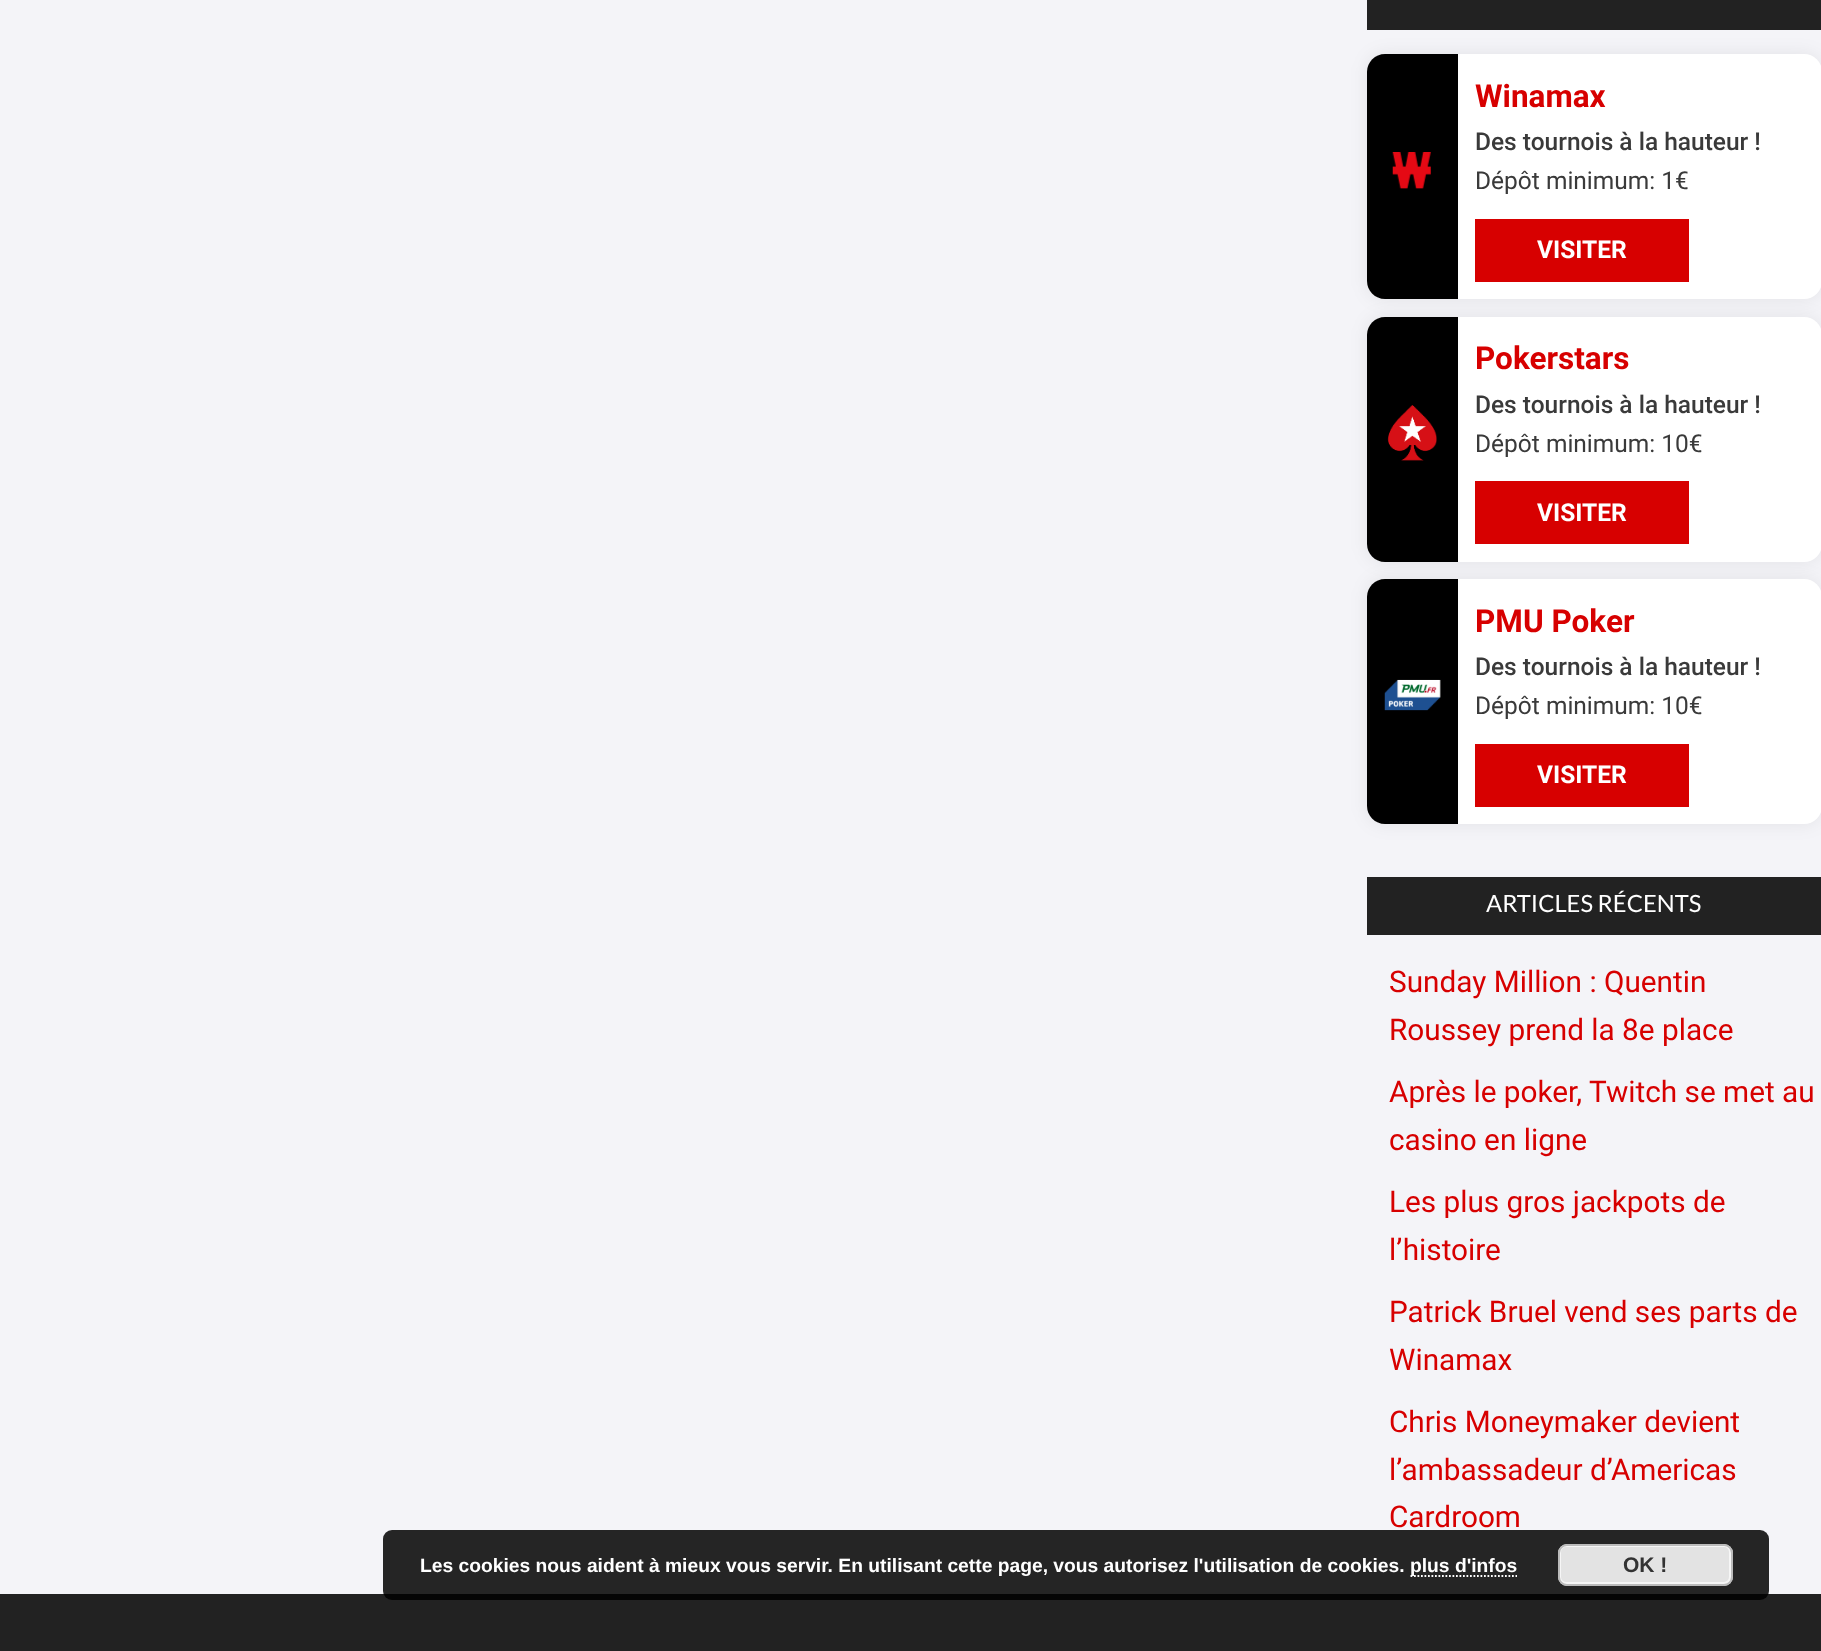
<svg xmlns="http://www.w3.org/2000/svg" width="1821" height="1651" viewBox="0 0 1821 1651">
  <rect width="100%" height="100%" fill="rgb(244,244,248)"/>
  <rect x="1367" y="0" width="454" height="30" fill="rgb(34,34,34)"/>
  <rect x="1367" y="54" width="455" height="245" rx="18" fill="rgba(0,0,0,0.07)" filter="blur(9px)"/>
  <rect x="1367" y="54" width="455" height="245" rx="18" fill="rgb(255,255,255)"/>
  <path d="M1385 54H1458V299H1385C1375 299 1367 291 1367 281V72C1367 62 1375 54 1385 54Z" fill="rgb(0,0,0)"/>
  <image x="1392" y="152" width="39" height="37" href="pic1.png"/>
  <text x="1475" y="107" font-family="Roboto" font-size="31.5" font-weight="bold" fill="rgb(215,0,0)">Winamax</text>
  <text x="1475" y="150" font-family="Roboto" font-size="24.5" font-weight="500" fill="rgb(58,58,58)">Des tournois à la hauteur !</text>
  <text x="1475" y="189" font-family="Roboto" font-size="24.5" fill="rgb(58,58,58)">Dépôt minimum: 1€</text>
  <rect x="1475" y="219" width="214" height="63" fill="rgb(215,0,0)"/>
  <text x="1537" y="258" font-family="Roboto" font-size="24.5" font-weight="bold" fill="rgb(255,255,255)">VISITER</text>
  <rect x="1367" y="317" width="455" height="245" rx="18" fill="rgba(0,0,0,0.07)" filter="blur(9px)"/>
  <rect x="1367" y="317" width="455" height="245" rx="18" fill="rgb(255,255,255)"/>
  <path d="M1385 317H1458V562H1385C1375 562 1367 554 1367 544V335C1367 325 1375 317 1385 317Z" fill="rgb(0,0,0)"/>
  <image x="1387" y="405" width="50" height="56" href="pic2.png"/>
  <text x="1475" y="369" font-family="Roboto" font-size="31.5" font-weight="bold" fill="rgb(215,0,0)">Pokerstars</text>
  <text x="1475" y="413" font-family="Roboto" font-size="24.5" font-weight="500" fill="rgb(58,58,58)">Des tournois à la hauteur !</text>
  <text x="1475" y="452" font-family="Roboto" font-size="24.5" fill="rgb(58,58,58)">Dépôt minimum: 10€</text>
  <rect x="1475" y="481" width="214" height="63" fill="rgb(215,0,0)"/>
  <text x="1537" y="521" font-family="Roboto" font-size="24.5" font-weight="bold" fill="rgb(255,255,255)">VISITER</text>
  <rect x="1367" y="579" width="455" height="245" rx="18" fill="rgba(0,0,0,0.07)" filter="blur(9px)"/>
  <rect x="1367" y="579" width="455" height="245" rx="18" fill="rgb(255,255,255)"/>
  <path d="M1385 579H1458V824H1385C1375 824 1367 816 1367 806V597C1367 587 1375 579 1385 579Z" fill="rgb(0,0,0)"/>
  <image x="1384" y="679" width="57" height="32" href="pic3.png"/>
  <text x="1475" y="632" font-family="Roboto" font-size="31.5" font-weight="bold" fill="rgb(215,0,0)">PMU Poker</text>
  <text x="1475" y="675" font-family="Roboto" font-size="24.5" font-weight="500" fill="rgb(58,58,58)">Des tournois à la hauteur !</text>
  <text x="1475" y="714" font-family="Roboto" font-size="24.5" fill="rgb(58,58,58)">Dépôt minimum: 10€</text>
  <rect x="1475" y="744" width="214" height="63" fill="rgb(215,0,0)"/>
  <text x="1537" y="783" font-family="Roboto" font-size="24.5" font-weight="bold" fill="rgb(255,255,255)">VISITER</text>
  <rect x="1367" y="877" width="454" height="58" fill="rgb(34,34,34)"/>
  <text x="1486" y="912" font-family="Lato" font-size="23.75" fill="rgb(255,255,255)">ARTICLES RÉCENTS</text>
  <g font-family="Roboto" font-size="29.75" fill="rgb(215,0,0)">
    <text>
      <tspan x="1389" y="992">Sunday Million : Quentin</tspan>
      <tspan x="1389" y="1040">Roussey prend la 8e place</tspan>
    </text>
    <text>
      <tspan x="1389" y="1102">Après le poker, Twitch se met au</tspan>
      <tspan x="1389" y="1150">casino en ligne</tspan>
    </text>
    <text>
      <tspan x="1389" y="1212">Les plus gros jackpots de</tspan>
      <tspan x="1389" y="1260">l’histoire</tspan>
    </text>
    <text>
      <tspan x="1389" y="1322">Patrick Bruel vend ses parts de</tspan>
      <tspan x="1389" y="1370">Winamax</tspan>
    </text>
    <text>
      <tspan x="1389" y="1432">Chris Moneymaker devient</tspan>
      <tspan x="1389" y="1480">l’ambassadeur d’Americas</tspan>
      <tspan x="1389" y="1527">Cardroom</tspan>
    </text>
  </g>
  <rect x="0" y="1594" width="1821" height="57" fill="rgb(34,34,34)"/>
  <rect x="383" y="1530" width="1386" height="70" rx="9" fill="rgba(0,0,0,0.85)"/>
  <text x="420" y="1572" font-family="Liberation Sans" font-size="19.25" font-weight="bold" fill="rgb(255,255,255)">Les cookies nous aident à mieux vous servir. En utilisant cette page, vous autorisez l'utilisation de cookies.</text>
  <path d="M1410.5 1576H1517" fill="none" stroke="rgb(255,255,255)" stroke-width="1.8" stroke-dasharray="1.75 1.75"/>
  <text x="1410" y="1572" font-family="Liberation Sans" font-size="19.25" font-weight="bold" fill="rgb(255,255,255)">plus d'infos</text>
  <rect x="1558" y="1544" width="175" height="42" rx="9" fill="rgb(227,227,227)"/>
  <rect x="1560" y="1546" width="170" height="37" rx="6" fill="none" stroke="rgb(246,246,246)" stroke-width="2"/>
  <rect x="1559" y="1545" width="173" height="40" rx="8" fill="none" stroke="rgb(187,187,187)" stroke-width="2"/>
  <text x="1623" y="1572" font-family="Liberation Sans" font-size="21" font-weight="bold" fill="rgb(51,51,51)">OK !</text>
</svg>
